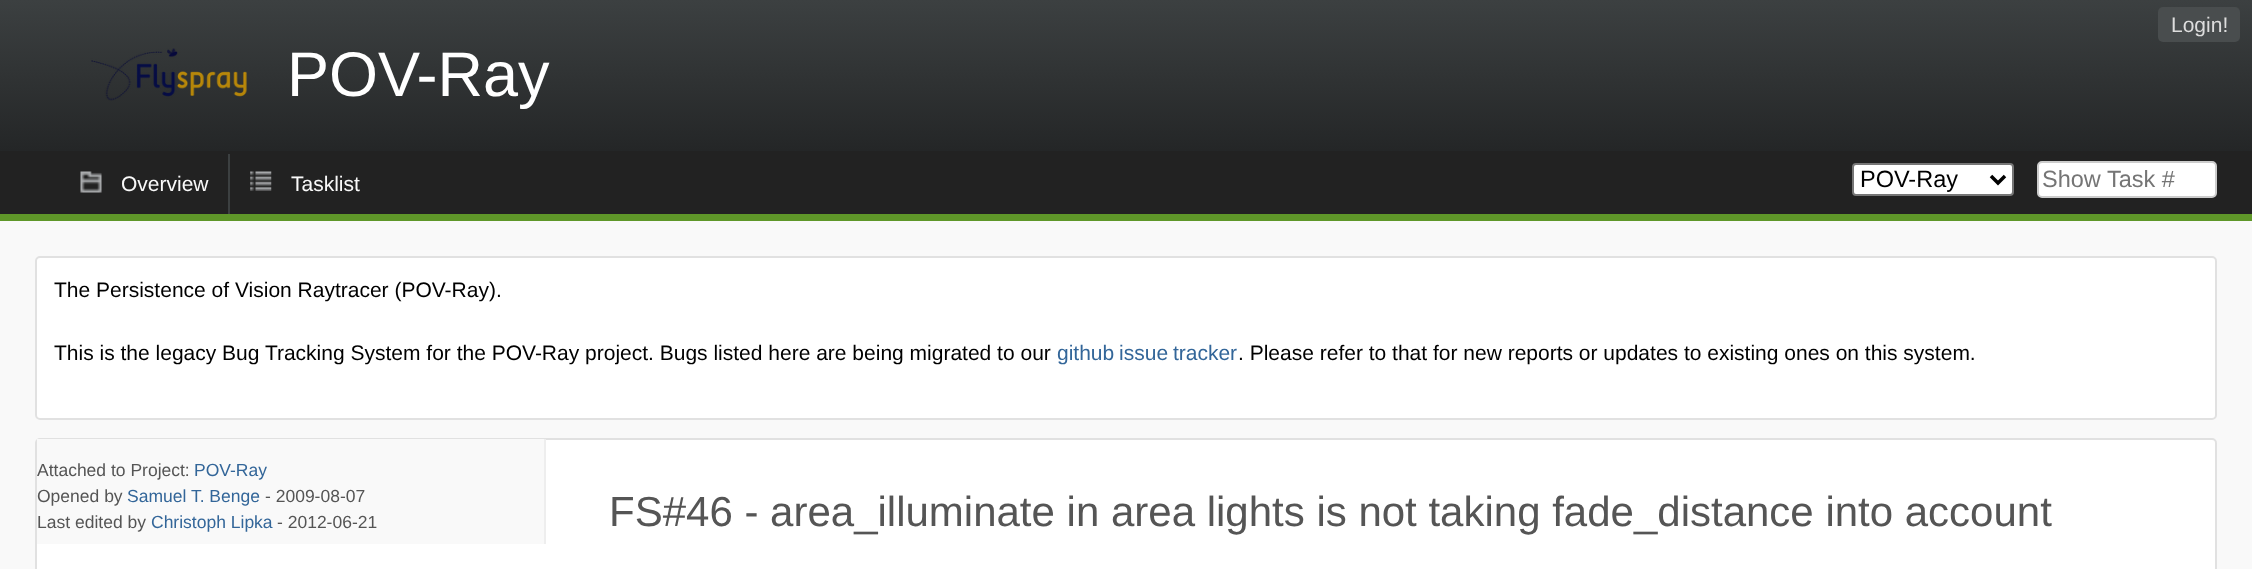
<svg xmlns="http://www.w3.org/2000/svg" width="2252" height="569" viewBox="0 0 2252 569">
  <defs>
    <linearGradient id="g1" gradientUnits="userSpaceOnUse" x1="1126" y1="0" x2="1126" y2="151"><stop offset="0" stop-color="rgb(60,64,65)"/><stop offset="1" stop-color="rgb(36,38,39)"/></linearGradient>
  </defs>
  <rect width="100%" height="100%" fill="rgb(249,249,249)"/>
  <rect x="0" y="0" width="2252" height="151" fill="url(#g1)"/>
  <rect x="2158" y="7" width="82" height="35" rx="5" fill="rgb(73,77,78)"/>
  <text x="2171" y="32" font-family="Liberation Sans" font-size="21" fill="rgb(221,221,221)">Login!</text>
  <image x="91" y="48" width="156" height="53" href="pic1.png"/>
  <text x="287" y="96" font-family="Liberation Sans" font-size="63" fill="rgb(255,255,255)">POV-Ray</text>
  <rect x="0" y="151" width="2252" height="63" fill="rgb(34,34,34)"/>
  <rect x="0" y="214" width="2252" height="7" fill="rgb(95,151,41)"/>
  <image x="80" y="171" width="22" height="22" href="pic2.png"/>
  <text x="121" y="191" font-family="Liberation Sans" font-size="21" fill="rgb(249,249,249)">Overview</text>
  <image x="250" y="171" width="22" height="20" href="pic3.png"/>
  <rect x="228" y="154" width="2" height="60" fill="rgb(60,64,65)"/>
  <text x="291" y="191" font-family="Liberation Sans" font-size="21" fill="rgb(249,249,249)">Tasklist</text>
  <rect x="1853" y="164" width="160" height="31" rx="3" fill="rgb(255,255,255)" stroke="rgb(118,118,118)" stroke-width="2"/>
  <path d="M1991 176L1998 183L2005 176" fill="none" stroke="rgb(0,0,0)" stroke-width="3.5"/>
  <text x="1860" y="187" font-family="Liberation Sans" font-size="23.5" fill="rgb(0,0,0)">POV-Ray</text>
  <rect x="2038" y="162" width="178" height="35" rx="4" fill="rgb(255,255,255)" stroke="rgb(204,204,204)" stroke-width="2"/>
  <text x="2042" y="187" font-family="Liberation Sans" font-size="23.5" fill="rgb(117,117,117)">Show Task #</text>
  <rect x="36" y="257" width="2180" height="162" rx="4" fill="rgb(255,255,255)" stroke="rgb(225,225,225)" stroke-width="2"/>
  <g font-family="Liberation Sans" font-size="21" fill="rgb(0,0,0)">
    <text x="54" y="297">The Persistence of Vision Raytracer (POV-Ray).</text>
    <text x="54" y="360">This is the legacy Bug Tracking System for the POV-Ray project. Bugs listed here are being migrated to our</text>
  </g>
  <text x="1057" y="360" word-spacing="-1" font-family="Liberation Sans" font-size="21" fill="rgb(51,102,153)">github issue tracker</text>
  <text x="1238" y="360" font-family="Liberation Sans" font-size="21" fill="rgb(0,0,0)">. Please refer to that for new reports or updates to existing ones on this system.</text>
  <rect x="36" y="439" width="2180" height="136" rx="4" fill="rgb(255,255,255)" stroke="rgb(225,225,225)" stroke-width="2"/>
  <rect x="37" y="439" width="507" height="105" fill="rgb(249,249,249)"/>
  <rect x="544" y="439" width="2" height="105" fill="rgb(238,238,238)"/>
  <text x="37" y="476" font-family="Liberation Sans" font-size="17.5" fill="rgb(85,85,85)">Attached to Project:</text>
  <text x="194" y="476" font-family="Liberation Sans" font-size="17.5" fill="rgb(51,102,153)">POV-Ray</text>
  <text x="37" y="502" font-family="Liberation Sans" font-size="17.5" fill="rgb(85,85,85)">Opened by</text>
  <text x="127" y="502" font-family="Liberation Sans" font-size="17.5" fill="rgb(51,102,153)">Samuel T. Benge</text>
  <g font-family="Liberation Sans" font-size="17.5" fill="rgb(85,85,85)">
    <text x="265" y="502">- 2009-08-07</text>
    <text x="37" y="528">Last edited by</text>
  </g>
  <text x="151" y="528" font-family="Liberation Sans" font-size="17.5" fill="rgb(51,102,153)">Christoph Lipka</text>
  <text x="277" y="528" font-family="Liberation Sans" font-size="17.5" fill="rgb(85,85,85)">- 2012-06-21</text>
  <text x="609" y="526" font-family="Liberation Sans" font-size="42" fill="rgb(85,85,85)">FS#46 - area_illuminate in area lights is not taking fade_distance into account</text>
</svg>
